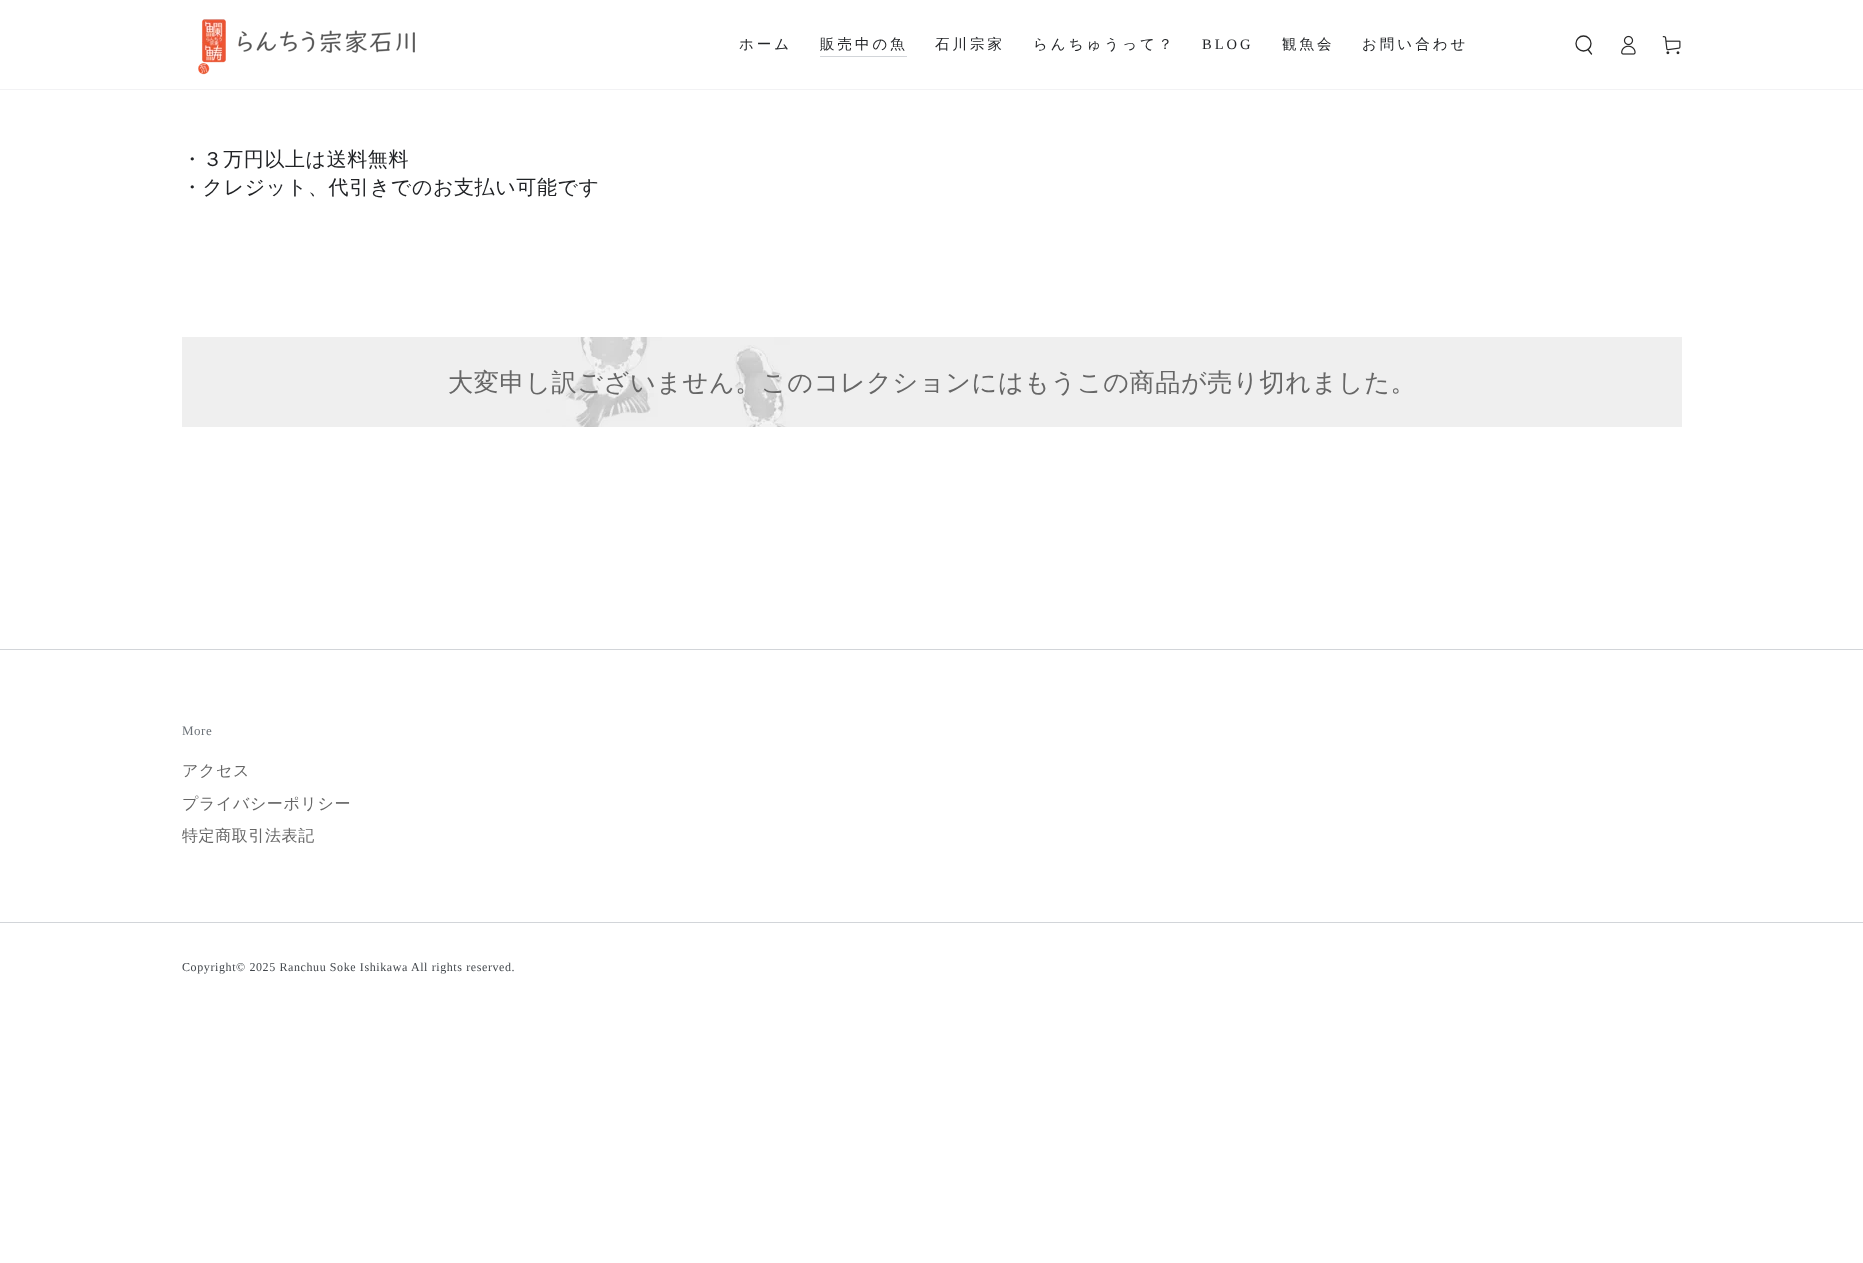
<svg xmlns="http://www.w3.org/2000/svg" width="1863" height="1263" viewBox="0 0 1863 1263">
  <rect width="100%" height="100%" fill="rgb(255,255,255)"/>
  <rect x="0" y="89" width="1863" height="1" fill="rgb(242,242,244)"/>
  <image x="198" y="19" width="217" height="56" href="pic1.png"/>
  <g font-family="WenQuanYi Zen Hei" font-size="14.5" font-weight="500" letter-spacing="3" fill="rgb(33,35,38)">
    <text x="739" y="49">ホーム</text>
    <text x="820" y="49">販売中の魚</text>
  </g>
  <rect x="820" y="56" width="87" height="1" fill="rgb(210,213,217)"/>
  <g font-family="WenQuanYi Zen Hei" font-size="14.5" font-weight="500" letter-spacing="3" fill="rgb(33,35,38)">
    <text x="935" y="49">石川宗家</text>
    <text x="1033" y="49">らんちゅうって？</text>
  </g>
  <text x="1202" y="49" font-family="Liberation Serif" font-size="14.5" letter-spacing="3" fill="rgb(33,35,38)">BLOG</text>
  <g font-family="WenQuanYi Zen Hei" font-size="14.5" font-weight="500" letter-spacing="3" fill="rgb(33,35,38)">
    <text x="1282" y="49">観魚会</text>
    <text x="1362" y="49">お問い合わせ</text>
  </g>
  <circle cx="1583.5" cy="43.5" r="7.5" fill="none" stroke="rgb(40,40,40)" stroke-width="1.3"/>
  <path d="M1588 49.5L1591.5 54" fill="none" stroke="rgb(40,40,40)" stroke-width="1.3" stroke-linecap="round"/>
  <image x="1621" y="35" width="15" height="20" href="pic2.png"/>
  <image x="1662" y="36" width="19" height="19" href="pic3.png"/>
  <g font-family="WenQuanYi Zen Hei" font-size="20" font-weight="500" letter-spacing="0.6" fill="rgb(33,35,38)">
    <text>
      <tspan x="182" y="166">・３万円以上は送料無料</tspan>
      <tspan x="182" y="194">・クレジット、代引きでのお支払い可能です</tspan>
    </text>
  </g>
  <image x="182" y="337" width="1500" height="90" href="pic4.png"/>
  <text x="448" y="391" font-family="WenQuanYi Zen Hei" font-size="25.2" font-weight="500" letter-spacing="0.55" fill="rgb(102,102,102)">大変申し訳ございません。このコレクションにはもうこの商品が売り切れました。</text>
  <rect x="0" y="649" width="1863" height="1" fill="rgb(210,213,217)"/>
  <text x="182" y="735" font-family="Liberation Serif" font-size="13" letter-spacing="0.5" fill="rgb(107,113,119)">More</text>
  <g font-family="WenQuanYi Zen Hei" font-size="16" font-weight="500" letter-spacing="0.6" fill="rgb(102,102,102)">
    <text x="182" y="776">アクセス</text>
    <text x="182" y="809">プライバシーポリシー</text>
    <text x="182" y="841">特定商取引法表記</text>
  </g>
  <rect x="0" y="922" width="1863" height="1" fill="rgb(210,213,217)"/>
  <text x="182" y="971" font-family="Liberation Serif" font-size="12" letter-spacing="0.6" fill="rgb(66,71,76)">Copyright© 2025 Ranchuu Soke Ishikawa All rights reserved.</text>
</svg>
